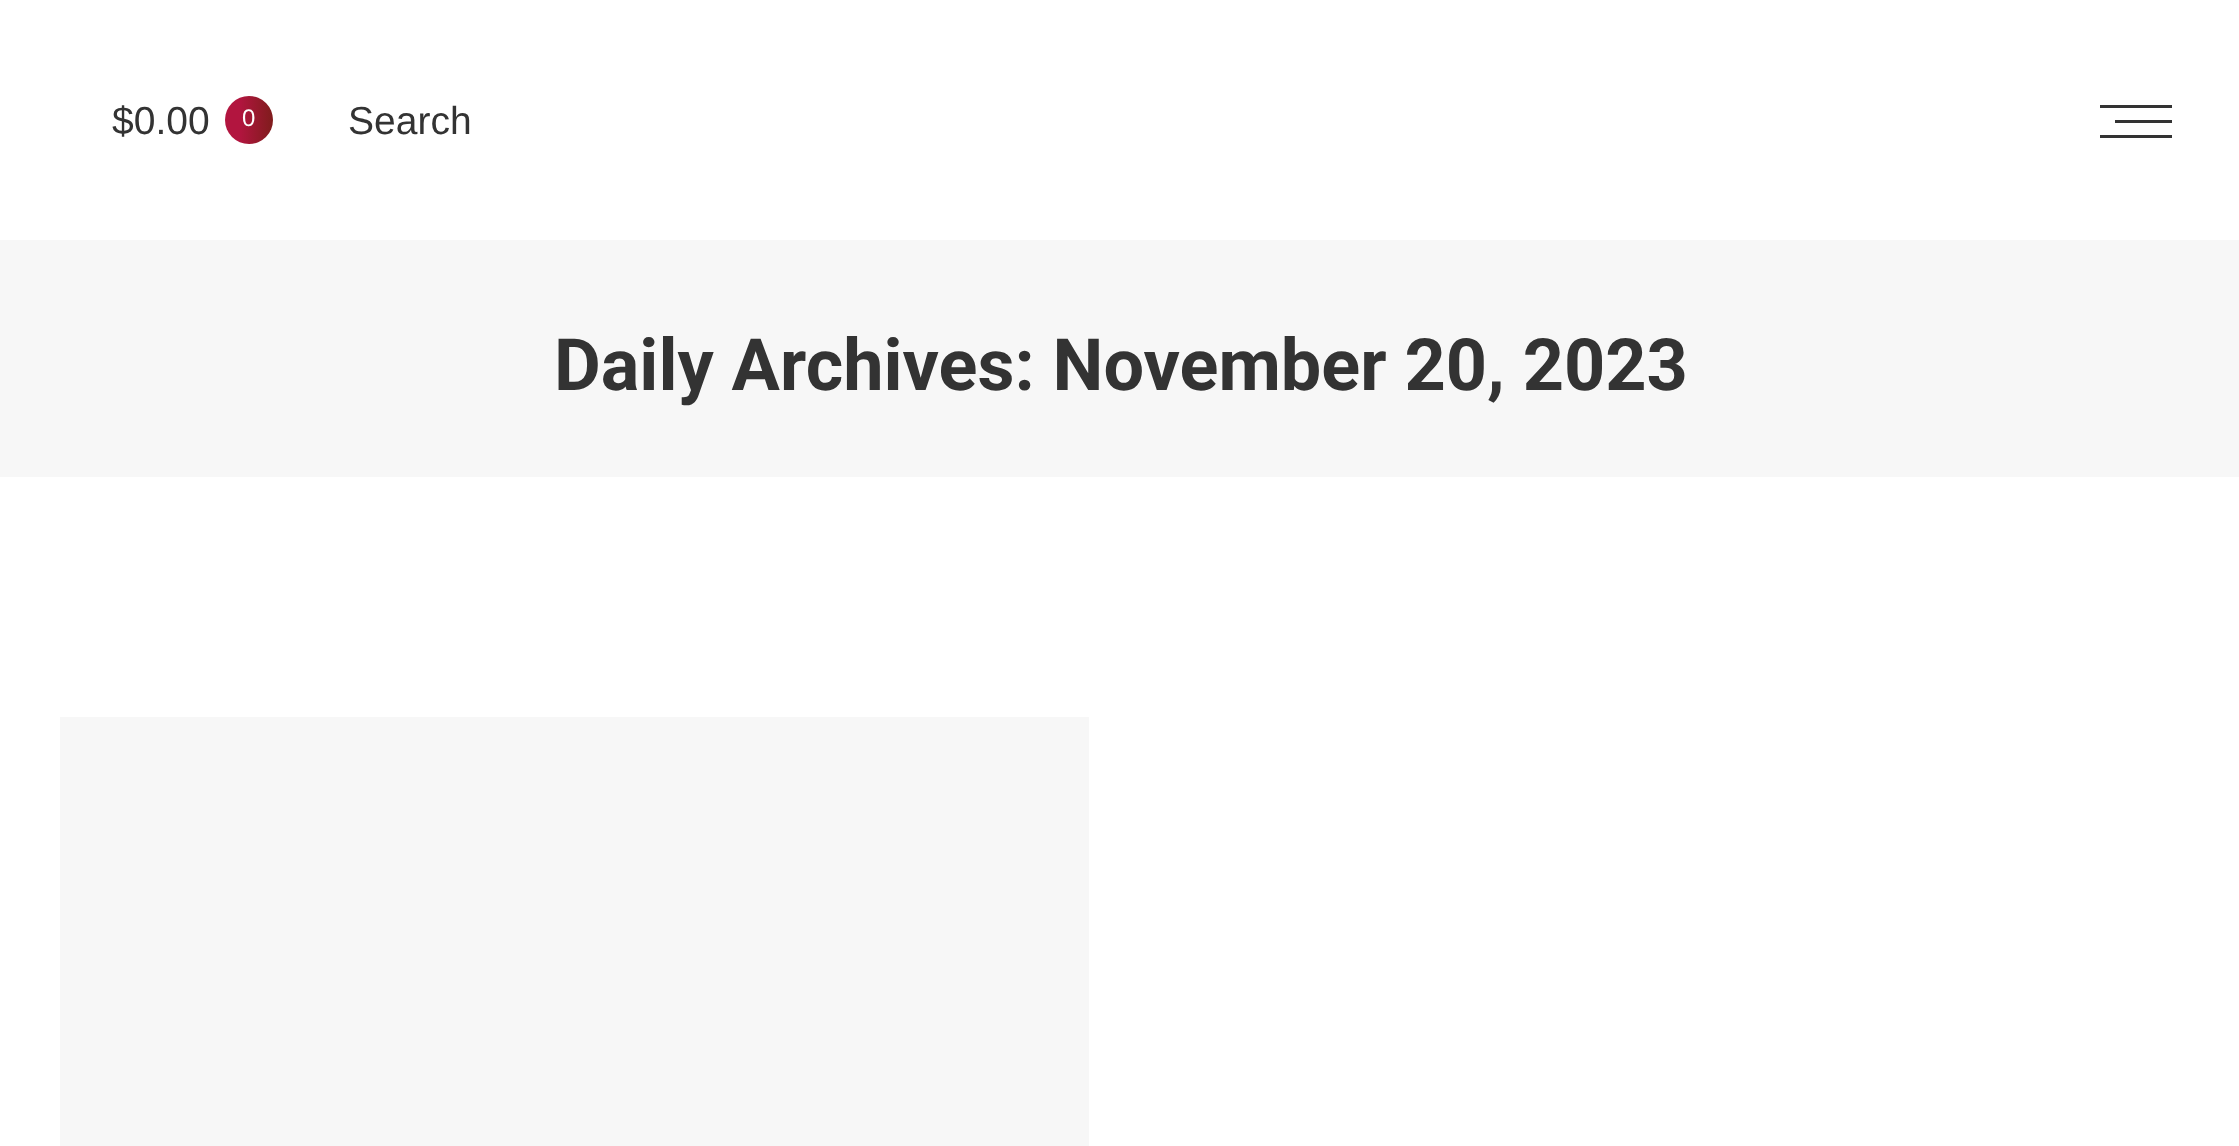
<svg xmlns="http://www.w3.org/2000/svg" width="2239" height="1146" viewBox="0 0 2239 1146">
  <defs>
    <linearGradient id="g1" gradientUnits="userSpaceOnUse" x1="225" y1="120" x2="273" y2="120"><stop offset="0.3" stop-color="rgb(178,21,63)"/><stop offset="1" stop-color="rgb(127,28,28)"/></linearGradient>
  </defs>
  <rect width="100%" height="100%" fill="rgb(255,255,255)"/>
  <text x="112" y="134" font-family="Liberation Sans" font-size="39" fill="rgb(51,51,51)">$0.00</text>
  <circle cx="249" cy="120" r="24" fill="url(#g1)"/>
  <text x="242" y="126" font-family="Liberation Sans" font-size="24" fill="rgb(255,255,255)">0</text>
  <text x="348" y="134" font-family="Liberation Sans" font-size="39" fill="rgb(51,51,51)">Search</text>
  <rect x="2100" y="105" width="72" height="3" fill="rgb(51,51,51)"/>
  <rect x="2115" y="120" width="57" height="3" fill="rgb(51,51,51)"/>
  <rect x="2100" y="135" width="72" height="3" fill="rgb(51,51,51)"/>
  <rect x="0" y="240" width="2239" height="237" fill="rgb(247,247,247)"/>
  <text x="554" y="390" font-family="Roboto" font-size="72" font-weight="bold" fill="rgb(51,51,51)">Daily Archives: November 20, 2023</text>
  <rect x="60" y="717" width="1029" height="429" fill="rgb(247,247,247)"/>
</svg>
